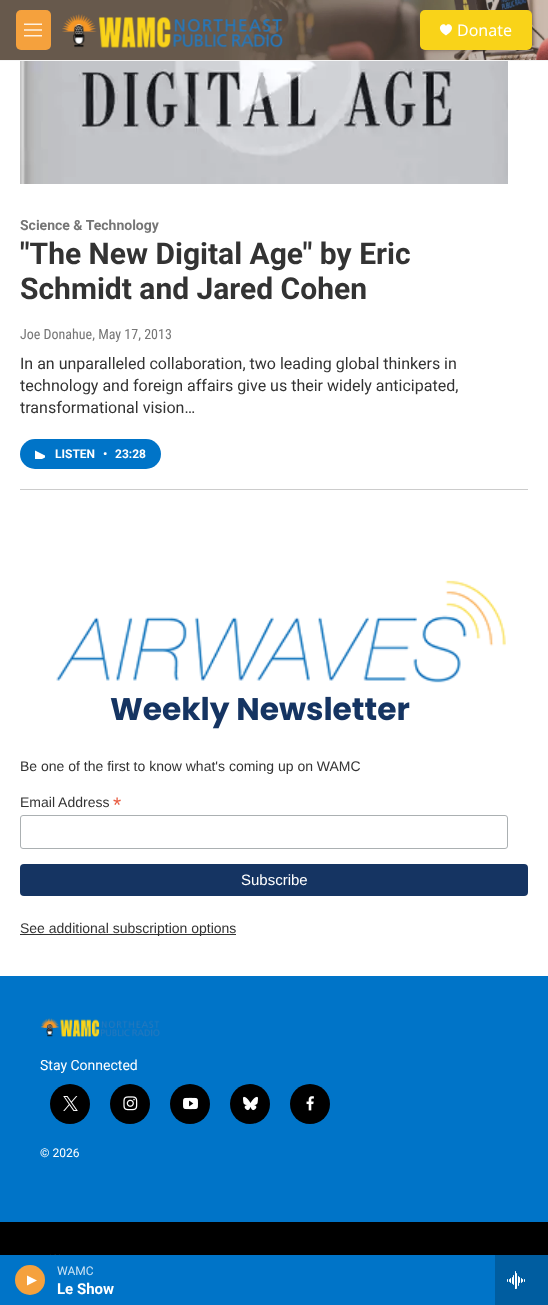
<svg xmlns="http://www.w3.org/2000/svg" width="548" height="1305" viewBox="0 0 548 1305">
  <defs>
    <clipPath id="clip1"><rect x="35" y="449" width="10" height="10"/></clipPath>
  </defs>
  <rect width="100%" height="100%" fill="rgb(255,255,255)"/>
  <rect x="0" y="60" width="548" height="1" fill="rgb(245,245,245)"/>
  <image x="0" y="0" width="548" height="60" href="pic1.png"/>
  <rect x="16" y="10" width="35" height="40" rx="5" fill="rgb(245,161,61)"/>
  <image x="24" y="23" width="18" height="14" href="pic2.png"/>
  <image x="62" y="14" width="221" height="34" href="pic3.png"/>
  <rect x="420" y="10" width="112" height="40" rx="5" fill="rgb(249,211,25)"/>
  <path d="M446 26C444 21 433.5 28 446 35.5C458.5 28 448 21 446 26Z" fill="rgb(255,255,255)"/>
  <text x="457" y="36" font-family="Noto Sans" font-size="16" fill="rgb(255,255,255)">Donate</text>
  <rect x="0" y="1255" width="495" height="50" fill="rgb(0,116,200)"/>
  <circle cx="30" cy="1280" r="15" fill="rgb(245,161,61)"/>
  <path d="M27 1275.5L37 1280.5L27 1285.5Z" fill="rgb(255,255,255)"/>
  <text x="57" y="1275" font-family="Roboto" font-size="12" fill="rgb(204,227,244)">WAMC</text>
  <text x="57" y="1294" font-family="'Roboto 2'" font-size="15" font-weight="bold" fill="rgb(255,255,255)">Le Show</text>
  <rect x="495" y="1255" width="53" height="50" fill="rgb(0,93,160)"/>
  <image x="507" y="1271" width="18" height="18" href="pic4.png"/>
  <rect x="20" y="489" width="508" height="1" fill="rgb(204,204,204)"/>
  <image x="20" y="61" width="488" height="123" href="pic5.png"/>
  <text x="20" y="230" font-family="Roboto" font-size="14" font-weight="bold" fill="rgb(118,118,118)">Science &amp; Technology</text>
  <g font-family="Roboto" font-size="30" font-weight="bold" fill="rgb(51,51,51)">
    <text>
      <tspan x="20" y="264">"The New Digital Age" by Eric</tspan>
      <tspan x="20" y="299">Schmidt and Jared Cohen</tspan>
    </text>
  </g>
  <text x="20" y="339" font-family="Roboto Condensed" font-size="14" fill="rgb(118,118,118)">Joe Donahue, May 17, 2013</text>
  <g font-family="Roboto" font-size="16" fill="rgb(51,51,51)">
    <text>
      <tspan x="20" y="369">In an unparalleled collaboration, two leading global thinkers in</tspan>
      <tspan x="20" y="391">technology and foreign affairs give us their widely anticipated,</tspan>
      <tspan x="20" y="413">transformational vision…</tspan>
    </text>
  </g>
  <rect x="20" y="439" width="141" height="30" rx="15" fill="rgb(0,116,200)"/>
  <g clip-path="url(#clip1)">
    <path d="M35 450.5L47 456.5L35 462.5Z" fill="rgb(255,255,255)"/>
  </g>
  <g font-family="'Roboto 2'" font-size="12" font-weight="bold" fill="rgb(255,255,255)">
    <text x="55" y="458">LISTEN</text>
    <text x="103" y="458">•</text>
    <text x="115" y="458">23:28</text>
  </g>
  <image x="56" y="580" width="450" height="149" href="pic6.png"/>
  <g font-family="Liberation Sans" font-size="14" fill="rgb(51,51,51)">
    <text x="20" y="771">Be one of the first to know what's coming up on WAMC</text>
    <text x="20" y="807">Email Address</text>
  </g>
  <text x="113" y="812" font-family="Liberation Sans" font-size="21" fill="rgb(232,92,65)">*</text>
  <rect x="20.5" y="815.5" width="487" height="33" rx="2.5" fill="none" stroke="rgb(171,176,178)"/>
  <rect x="20" y="864" width="508" height="32" rx="4" fill="rgb(21,52,98)"/>
  <text x="241" y="885" font-family="Liberation Sans" font-size="15" fill="rgb(255,255,255)">Subscribe</text>
  <rect x="20" y="934" width="216" height="1" fill="rgb(51,51,51)"/>
  <text x="20" y="933" font-family="Liberation Sans" font-size="14" fill="rgb(51,51,51)">See additional subscription options</text>
  <rect x="0" y="976" width="548" height="246" fill="rgb(0,116,200)"/>
  <image x="40" y="1018" width="120" height="19" href="pic7.png"/>
  <text x="40" y="1070" font-family="Roboto" font-size="14" fill="rgb(255,255,255)">Stay Connected</text>
  <circle cx="70" cy="1104" r="20" fill="rgb(0,0,0)"/>
  <image x="63" y="1096" width="15" height="15" href="pic8.png"/>
  <circle cx="130" cy="1104" r="20" fill="rgb(0,0,0)"/>
  <image x="123" y="1096" width="15" height="15" href="pic9.png"/>
  <circle cx="190" cy="1104" r="20" fill="rgb(0,0,0)"/>
  <image x="183" y="1097" width="15" height="13" href="pic10.png"/>
  <circle cx="250" cy="1104" r="20" fill="rgb(0,0,0)"/>
  <image x="243" y="1096" width="15" height="15" href="pic11.png"/>
  <circle cx="310" cy="1104" r="20" fill="rgb(0,0,0)"/>
  <image x="306" y="1096" width="8" height="15" href="pic12.png"/>
  <text x="40" y="1157" font-family="Roboto" font-size="12" fill="rgb(255,255,255)">© 2026</text>
  <rect x="0" y="1222" width="548" height="33" fill="rgb(0,0,0)"/>
  <image x="50" y="1254" width="10" height="1" href="pic13.png"/>
</svg>
